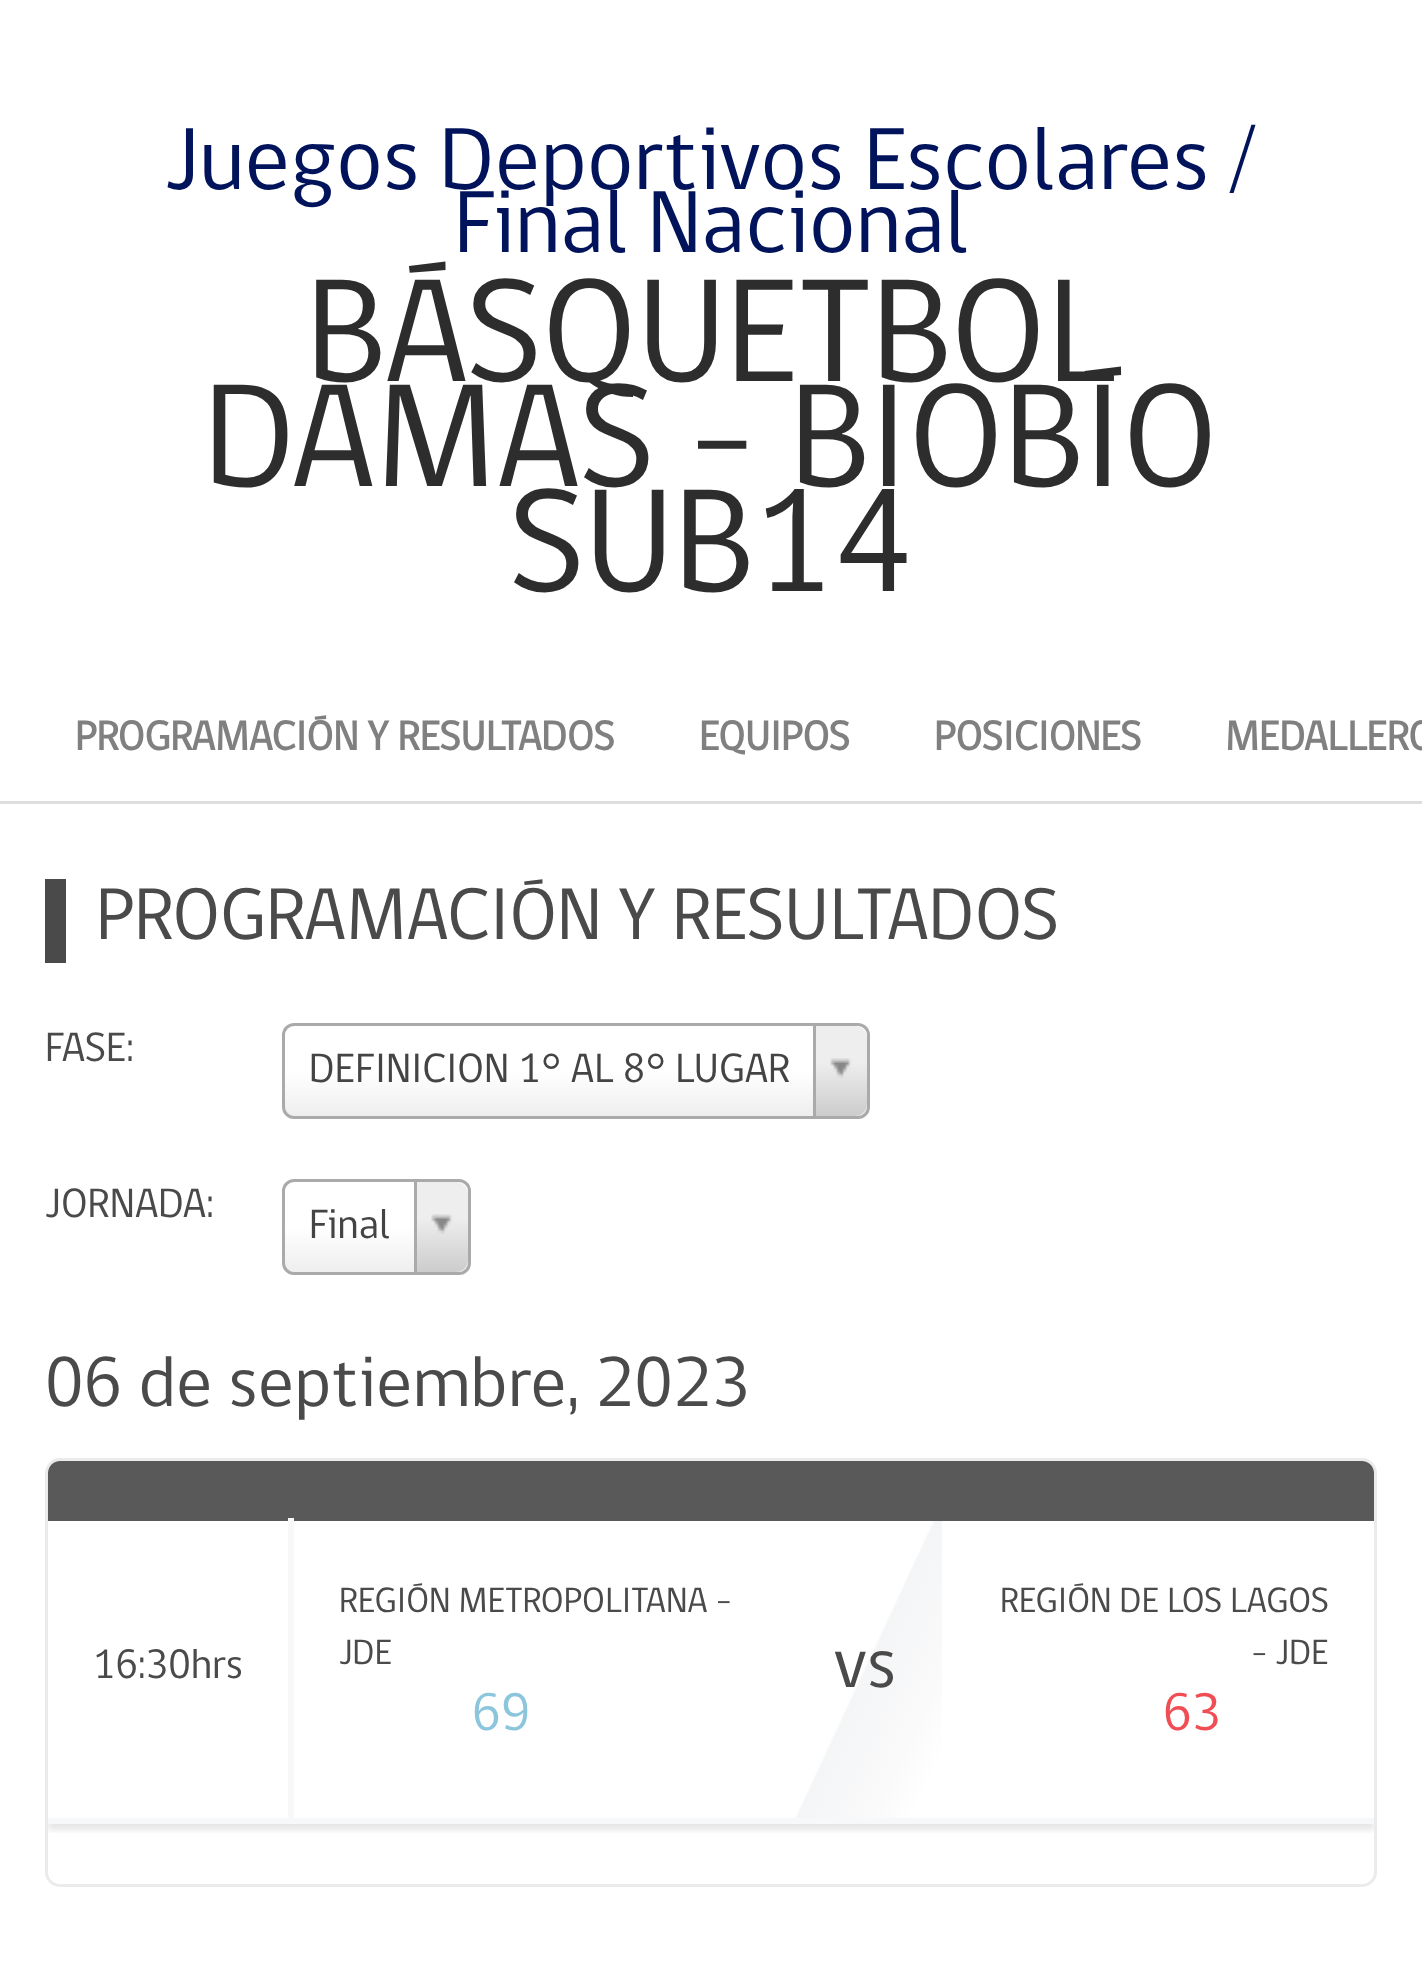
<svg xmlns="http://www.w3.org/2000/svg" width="1422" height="1978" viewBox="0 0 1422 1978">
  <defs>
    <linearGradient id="g1" gradientUnits="userSpaceOnUse" x1="576" y1="1116" x2="576" y2="1026"><stop offset="0" stop-color="rgb(238,238,238)"/><stop offset="0.5" stop-color="rgb(255,255,255)"/></linearGradient>
    <linearGradient id="g2" gradientUnits="userSpaceOnUse" x1="842" y1="1116" x2="842" y2="1026"><stop offset="0" stop-color="rgb(204,204,204)"/><stop offset="0.6" stop-color="rgb(238,238,238)"/></linearGradient>
    <linearGradient id="g3" gradientUnits="userSpaceOnUse" x1="377" y1="1272" x2="377" y2="1182"><stop offset="0" stop-color="rgb(238,238,238)"/><stop offset="0.5" stop-color="rgb(255,255,255)"/></linearGradient>
    <linearGradient id="g4" gradientUnits="userSpaceOnUse" x1="443" y1="1272" x2="443" y2="1182"><stop offset="0" stop-color="rgb(204,204,204)"/><stop offset="0.6" stop-color="rgb(238,238,238)"/></linearGradient>
    <clipPath id="clip1"><rect x="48" y="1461" width="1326" height="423" rx="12"/></clipPath>
    <clipPath id="clip2"><rect x="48" y="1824" width="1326" height="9"/></clipPath>
    <linearGradient id="g5" gradientUnits="userSpaceOnUse" x1="745" y1="1615" x2="986" y2="1727"><stop offset="0" stop-color="rgb(255,255,255)"/><stop offset="0.49" stop-color="rgb(255,255,255)"/><stop offset="0.5" stop-color="rgb(244,245,246)"/><stop offset="0.76" stop-color="rgb(250,250,251)"/><stop offset="0.9" stop-color="rgb(255,255,255)"/><stop offset="1" stop-color="rgb(255,255,255)"/></linearGradient>
  </defs>
  <rect width="100%" height="100%" fill="rgb(255,255,255)"/>
  <g font-family="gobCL" font-size="90" fill="rgb(0,19,91)">
    <text x="165" y="189">Juegos Deportivos Escolares /</text>
    <text x="454" y="252">Final Nacional</text>
  </g>
  <g font-family="gobCL" font-size="150" fill="rgb(45,45,45)">
    <text x="306" y="381">BÁSQUETBOL</text>
    <text x="204" y="486">DAMAS - BIOBÍO</text>
    <text x="508" y="591">SUB14</text>
  </g>
  <rect x="0" y="801" width="1422" height="3" fill="rgb(222,222,222)"/>
  <g font-family="gobCL" font-size="42" font-weight="bold" fill="rgb(128,128,128)">
    <text x="75" y="750">PROGRAMACIÓN Y RESULTADOS</text>
    <text x="699" y="750">EQUIPOS</text>
    <text x="934" y="750">POSICIONES</text>
    <text x="1225" y="750">MEDALLERO</text>
  </g>
  <rect x="45" y="879" width="21" height="84" fill="rgb(74,74,74)"/>
  <text x="96" y="939" font-family="gobCL" font-size="75" fill="rgb(74,74,74)">PROGRAMACIÓN Y RESULTADOS</text>
  <text x="45" y="1061" font-family="gobCL" font-size="42" fill="rgb(74,74,74)">FASE:</text>
  <rect x="285" y="1026" width="582" height="90" rx="9" fill="url(#g1)"/>
  <rect x="283.5" y="1024.5" width="585" height="93" rx="10.5" fill="none" stroke="rgb(170,170,170)" stroke-width="3"/>
  <text x="309" y="1082" font-family="gobCL" font-size="42" fill="rgb(68,68,68)">DEFINICION 1° AL 8° LUGAR</text>
  <path d="M813 1026H855C861.5 1026 867 1031.5 867 1038V1104C867 1110.5 861.5 1116 855 1116H813Z" fill="url(#g2)"/>
  <rect x="813" y="1026" width="3" height="90" fill="rgb(170,170,170)"/>
  <image x="830" y="1058" width="22" height="20" href="pic1.png"/>
  <text x="45" y="1217" font-family="gobCL" font-size="42" fill="rgb(74,74,74)">JORNADA:</text>
  <rect x="285" y="1182" width="183" height="90" rx="9" fill="url(#g3)"/>
  <rect x="283.5" y="1180.5" width="186" height="93" rx="10.5" fill="none" stroke="rgb(170,170,170)" stroke-width="3"/>
  <text x="309" y="1238" font-family="gobCL" font-size="42" fill="rgb(68,68,68)">Final</text>
  <path d="M414 1182H456C462.5 1182 468 1187.5 468 1194V1260C468 1266.5 462.5 1272 456 1272H414Z" fill="url(#g4)"/>
  <rect x="414" y="1182" width="3" height="90" fill="rgb(170,170,170)"/>
  <image x="431" y="1214" width="22" height="20" href="pic2.png"/>
  <text x="45" y="1406" font-family="gobCL" font-size="72" fill="rgb(74,74,74)">06 de septiembre, 2023</text>
  <rect x="46.5" y="1459.5" width="1329" height="426" rx="13.5" fill="none" stroke="rgb(235,235,235)" stroke-width="3"/>
  <g clip-path="url(#clip1)">
    <g clip-path="url(#clip2)">
      <rect x="48" y="1467" width="1326" height="363" fill="rgba(0,0,0,0.1)" filter="blur(3px)"/>
    </g>
  </g>
  <path d="M60 1461H1362C1368.5 1461 1374 1466.5 1374 1473V1521H48V1473C48 1466.5 53.5 1461 60 1461Z" fill="rgb(89,89,89)"/>
  <rect x="48" y="1818" width="1326" height="6" fill="rgb(247,248,249)"/>
  <rect x="288" y="1518" width="6" height="306" fill="rgb(247,248,249)"/>
  <text x="93" y="1678" font-family="gobCL" font-size="42" fill="rgb(74,74,74)">16:30hrs</text>
  <g font-family="gobCL" font-size="36" fill="rgb(74,74,74)">
    <text>
      <tspan x="339" y="1612">REGIÓN METROPOLITANA -</tspan>
      <tspan x="339" y="1664">JDE</tspan>
    </text>
  </g>
  <text x="472" y="1730" font-family="gobCL" font-size="54" fill="rgb(140,198,221)">69</text>
  <rect x="795" y="1521" width="147" height="297" fill="url(#g5)"/>
  <text x="834" y="1687" font-family="gobCL" font-size="72" fill="rgb(74,74,74)">vs</text>
  <g font-family="gobCL" font-size="36" fill="rgb(74,74,74)">
    <text x="1000" y="1612">REGIÓN DE LOS LAGOS</text>
    <text x="1251" y="1664">- JDE</text>
  </g>
  <text x="1163" y="1730" font-family="gobCL" font-size="54" fill="rgb(241,77,84)">63</text>
</svg>
